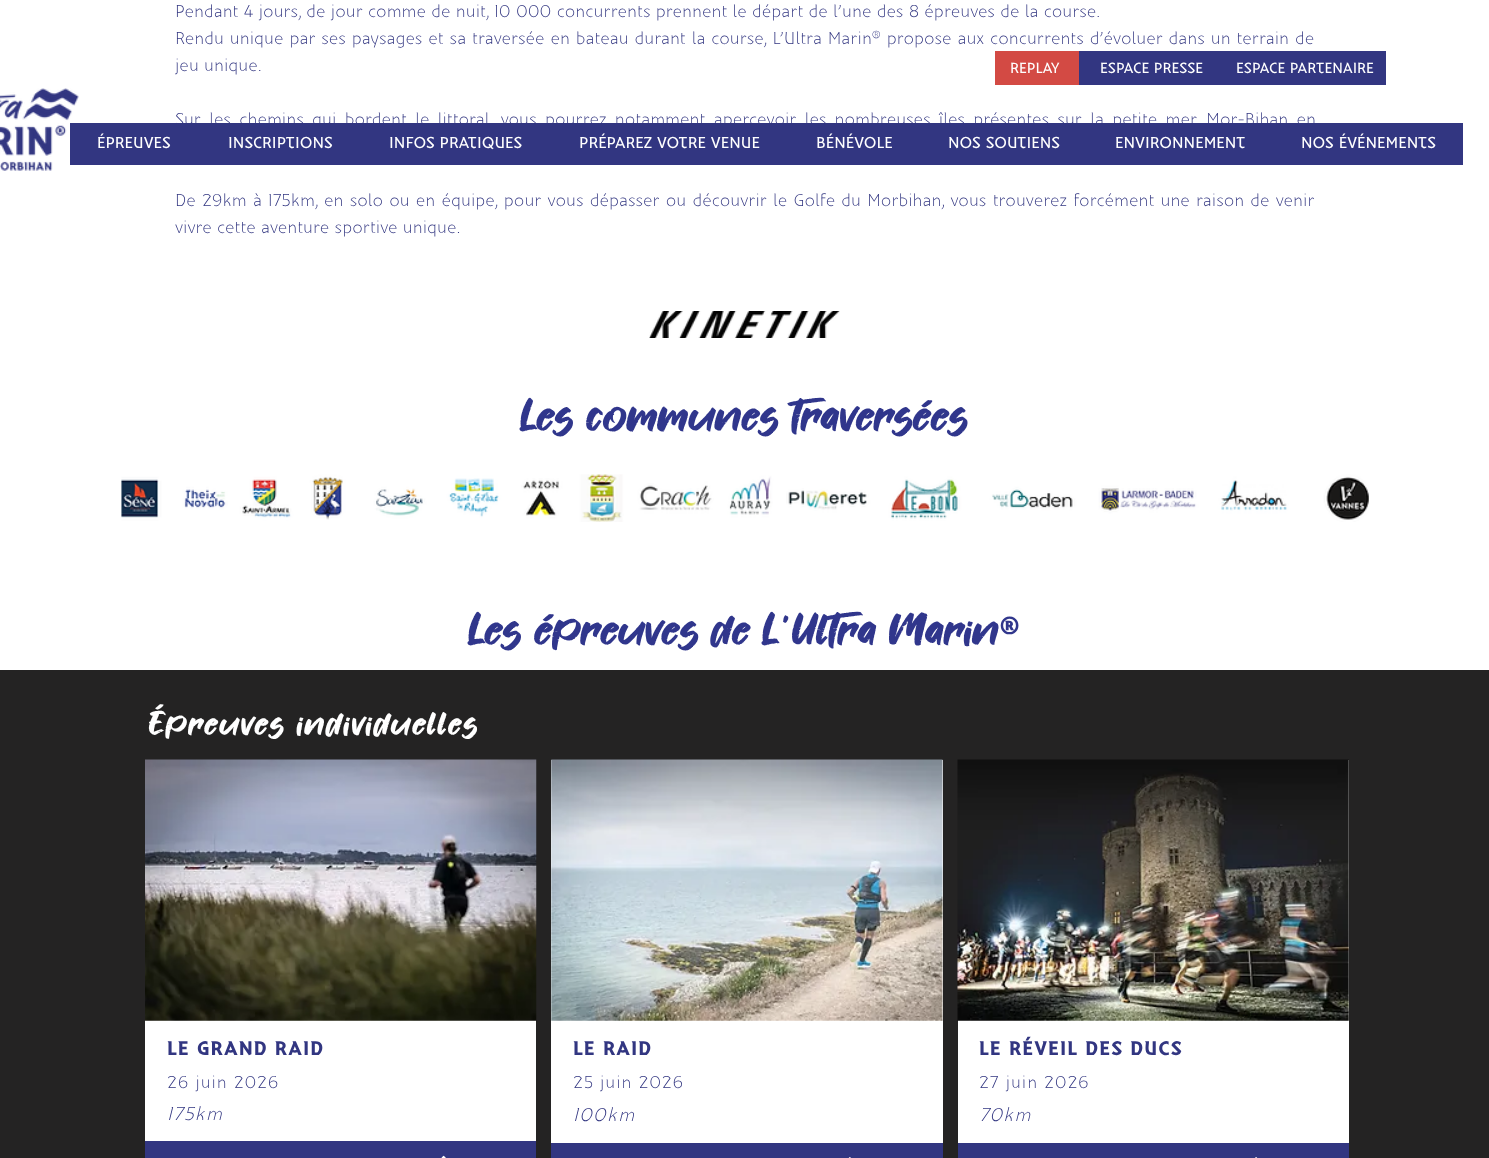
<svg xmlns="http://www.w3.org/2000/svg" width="1489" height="1158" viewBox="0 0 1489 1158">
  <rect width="100%" height="100%" fill="rgb(255,255,255)"/>
  <g font-family="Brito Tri" font-size="17.5" font-weight="300" fill="rgb(50,54,129)">
    <text>
      <tspan x="175" y="17">Pendant 4 jours, de jour comme de nuit, 10 000 concurrents prennent le départ de l’une des 8 épreuves de la course.</tspan>
      <tspan x="175" y="44" word-spacing="0.6">Rendu unique par ses paysages et sa traversée en bateau durant la course, L’Ultra Marin® propose aux concurrents d’évoluer dans un terrain de</tspan>
      <tspan x="175" y="71">jeu unique.</tspan>
    </text>
    <text x="175" y="125" word-spacing="3">Sur les chemins qui bordent le littoral, vous pourrez notamment apercevoir les nombreuses îles présentes sur la petite mer, Mor-Bihan en</text>
    <text>
      <tspan x="175" y="206" word-spacing="0.9">De 29km à 175km, en solo ou en équipe, pour vous dépasser ou découvrir le Golfe du Morbihan, vous trouverez forcément une raison de venir</tspan>
      <tspan x="175" y="233">vivre cette aventure sportive unique.</tspan>
    </text>
  </g>
  <image x="649" y="311" width="191" height="27" href="pic1.png"/>
  <text x="521" y="431" font-family="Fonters" font-size="43.75" fill="rgb(48,54,140)">Les communes traversées</text>
  <image x="121" y="474" width="1248" height="48" href="pic2.png"/>
  <text x="469" y="645" font-family="Fonters" font-size="43.75" fill="rgb(48,54,140)">Les épreuves de L'Ultra Marin</text>
  <text x="1000" y="645" font-family="Brito Tri" font-size="36" font-weight="bold" fill="rgb(48,54,140)">®</text>
  <rect x="0" y="670" width="1489" height="488" fill="rgb(36,35,35)"/>
  <text x="149" y="735" font-family="Fonters" font-size="32.5" letter-spacing="1.6" fill="rgb(255,255,255)">Épreuves individuelles</text>
  <rect x="145" y="1020" width="391" height="121" fill="rgb(255,255,255)"/>
  <image x="145" y="759" width="392" height="262" href="pic3.png"/>
  <text x="167" y="1055" font-family="Brito Tri" font-size="20" font-weight="bold" letter-spacing="1" fill="rgb(50,54,129)">LE GRAND RAID</text>
  <text x="167" y="1088" font-family="Brito Tri" font-size="17.5" font-weight="300" letter-spacing="0.9" fill="rgb(50,54,129)">26 juin 2026</text>
  <text x="167" y="1120" font-family="Brito Tri" font-size="19" font-weight="300" font-style="italic" letter-spacing="1" fill="rgb(50,54,129)">175km</text>
  <rect x="145" y="1141" width="391" height="17" fill="rgb(50,54,129)"/>
  <image x="441" y="1155" width="5" height="3" href="pic4.png"/>
  <rect x="551" y="760" width="392" height="383" fill="rgb(255,255,255)"/>
  <image x="551" y="759" width="392" height="262" href="pic5.png"/>
  <text x="573" y="1055" font-family="Brito Tri" font-size="20" font-weight="bold" letter-spacing="1" fill="rgb(50,54,129)">LE RAID</text>
  <text x="573" y="1088" font-family="Brito Tri" font-size="17.5" font-weight="300" letter-spacing="0.9" fill="rgb(50,54,129)">25 juin 2026</text>
  <text x="573" y="1121" font-family="Brito Tri" font-size="19" font-weight="300" font-style="italic" letter-spacing="1" fill="rgb(50,54,129)">100km</text>
  <rect x="551" y="1143" width="392" height="15" fill="rgb(50,54,129)"/>
  <image x="848" y="1157" width="3" height="1" href="pic6.png"/>
  <rect x="958" y="760" width="391" height="383" fill="rgb(255,255,255)"/>
  <image x="957" y="759" width="392" height="262" href="pic7.png"/>
  <text x="979" y="1055" font-family="Brito Tri" font-size="20" font-weight="bold" letter-spacing="1" fill="rgb(50,54,129)">LE RÉVEIL DES DUCS</text>
  <text x="979" y="1088" font-family="Brito Tri" font-size="17.5" font-weight="300" letter-spacing="0.9" fill="rgb(50,54,129)">27 juin 2026</text>
  <text x="979" y="1121" font-family="Brito Tri" font-size="19" font-weight="300" font-style="italic" letter-spacing="1" fill="rgb(50,54,129)">70km</text>
  <rect x="958" y="1143" width="391" height="15" fill="rgb(50,54,129)"/>
  <image x="1255" y="1157" width="3" height="1" href="pic8.png"/>
  <rect x="995" y="51" width="84" height="34" fill="rgb(211,74,68)"/>
  <text x="1010" y="73" font-family="Brito Tri" font-size="15" fill="rgb(255,255,255)">REPLAY</text>
  <rect x="1079" y="51" width="307" height="34" fill="rgb(50,54,129)"/>
  <g font-family="Brito Tri" font-size="15" fill="rgb(255,255,255)">
    <text x="1100" y="73">ESPACE PRESSE</text>
    <text x="1236" y="73">ESPACE PARTENAIRE</text>
  </g>
  <rect x="70" y="123" width="1393" height="42" fill="rgb(50,54,129)"/>
  <image x="0" y="88" width="79" height="83" href="pic9.png"/>
  <g font-family="Brito Tri" font-size="16.25" fill="rgb(255,255,255)">
    <text x="97" y="148">ÉPREUVES</text>
    <text x="228" y="148">INSCRIPTIONS</text>
    <text x="389" y="148">INFOS PRATIQUES</text>
    <text x="579" y="148">PRÉPAREZ VOTRE VENUE</text>
    <text x="816" y="148">BÉNÉVOLE</text>
    <text x="948" y="148">NOS SOUTIENS</text>
    <text x="1115" y="148">ENVIRONNEMENT</text>
    <text x="1301" y="148">NOS ÉVÉNEMENTS</text>
  </g>
</svg>
